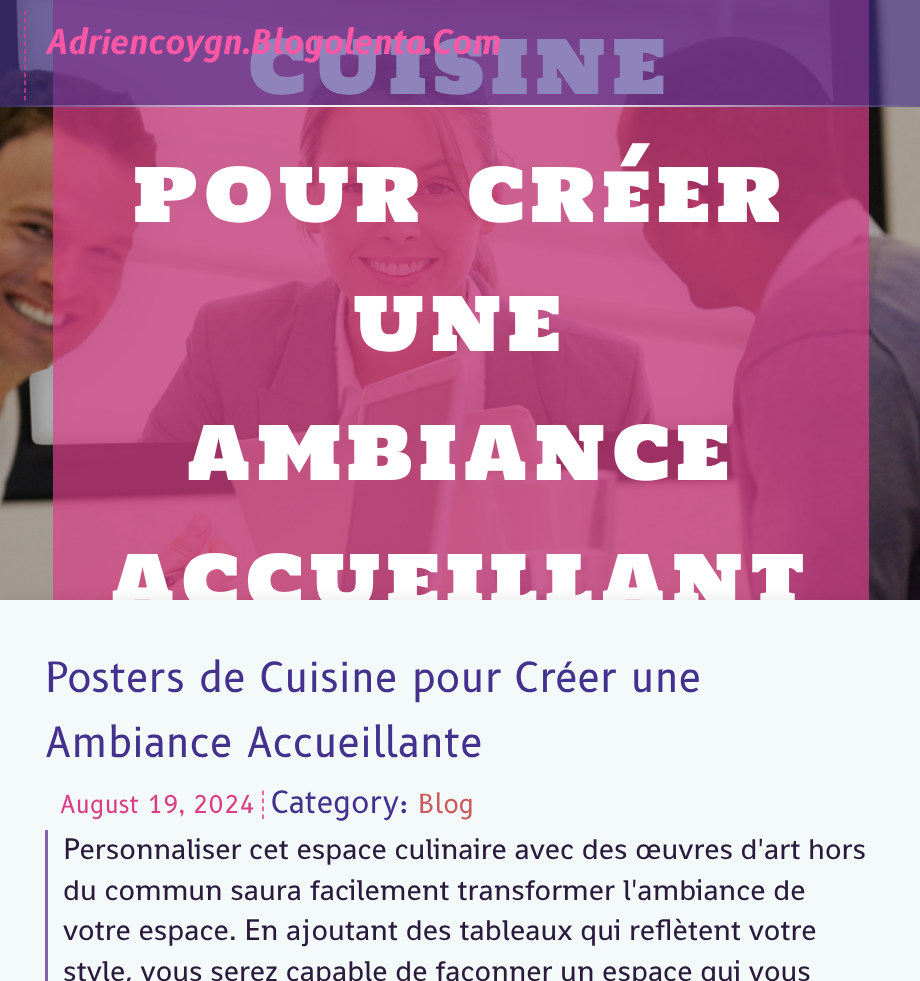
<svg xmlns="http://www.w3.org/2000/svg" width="920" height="981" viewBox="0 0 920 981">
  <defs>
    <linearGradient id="g1" gradientUnits="userSpaceOnUse" x1="0" y1="106" x2="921" y2="106"><stop offset="0" stop-color="rgb(238,238,238)" stop-opacity="0"/><stop offset="0.33" stop-color="rgb(238,238,238)"/><stop offset="0.62" stop-color="rgb(238,238,238)"/><stop offset="1" stop-color="rgb(238,238,238)" stop-opacity="0"/></linearGradient>
  </defs>
  <rect width="100%" height="100%" fill="rgb(255,255,255)"/>
  <image x="0" y="0" width="920" height="600" href="pic1.png"/>
  <rect x="53" y="0" width="816" height="600" fill="rgba(217,63,135,0.7)"/>
  <text x="248" y="94" font-family="Holtwood One SC" font-size="73.5" letter-spacing="6" fill="rgb(255,255,255)">CUISINE</text>
  <rect x="0" y="0" width="920" height="107" fill="rgba(68,49,141,0.6)"/>
  <path d="M25 10.5V100.5" fill="none" stroke="rgb(217,63,135)" stroke-width="1.5" stroke-dasharray="4.5 3.27"/>
  <text x="45" y="54" font-family="'B612'" font-size="33" font-weight="bold" font-style="italic" fill="rgb(253,88,165)">Adriencoygn.Blogolenta.Com</text>
  <rect x="0" y="105" width="920" height="2" fill="url(#g1)"/>
  <g font-family="Holtwood One SC" font-size="73.5" letter-spacing="6" fill="rgb(255,255,255)">
    <text x="134" y="222" word-spacing="12">POUR CRéER</text>
    <text x="353" y="351">UNE</text>
    <text x="186" y="480">AMBIANCE</text>
    <text x="110" y="609">ACCUEILLANT</text>
  </g>
  <rect x="0" y="600" width="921" height="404" fill="rgba(0,0,0,0.1)" filter="blur(7.5px)"/>
  <rect x="0" y="600" width="920" height="381" fill="rgb(244,249,250)"/>
  <g font-family="'B612'" font-size="40.5" fill="rgb(68,49,141)">
    <text>
      <tspan x="45" y="692">Posters de Cuisine pour Créer une</tspan>
      <tspan x="45" y="757">Ambiance Accueillante</tspan>
    </text>
  </g>
  <text x="60" y="813" font-family="'B612'" font-size="24" fill="rgb(217,63,135)">August 19, 2024</text>
  <path d="M263 790.5V819" fill="none" stroke="rgb(217,63,135)" stroke-width="1.5" stroke-dasharray="4.5 3.5"/>
  <text x="271" y="813" font-family="'B612'" font-size="30" fill="rgb(68,49,141)">Category:</text>
  <text x="418" y="813" font-family="'B612'" font-size="25.5" fill="rgb(202,90,91)">Blog</text>
  <rect x="45" y="830" width="3" height="151" fill="rgb(130,101,167)"/>
  <g font-family="Shanti" font-size="30" fill="rgb(42,27,60)">
    <text>
      <tspan x="63" y="859">Personnaliser cet espace culinaire avec des œuvres d'art hors</tspan>
      <tspan x="63" y="900">du commun saura facilement transformer l'ambiance de</tspan>
      <tspan x="63" y="940">votre espace. En ajoutant des tableaux qui reflètent votre</tspan>
      <tspan x="63" y="981">style, vous serez capable de façonner un espace qui vous</tspan>
    </text>
  </g>
</svg>
